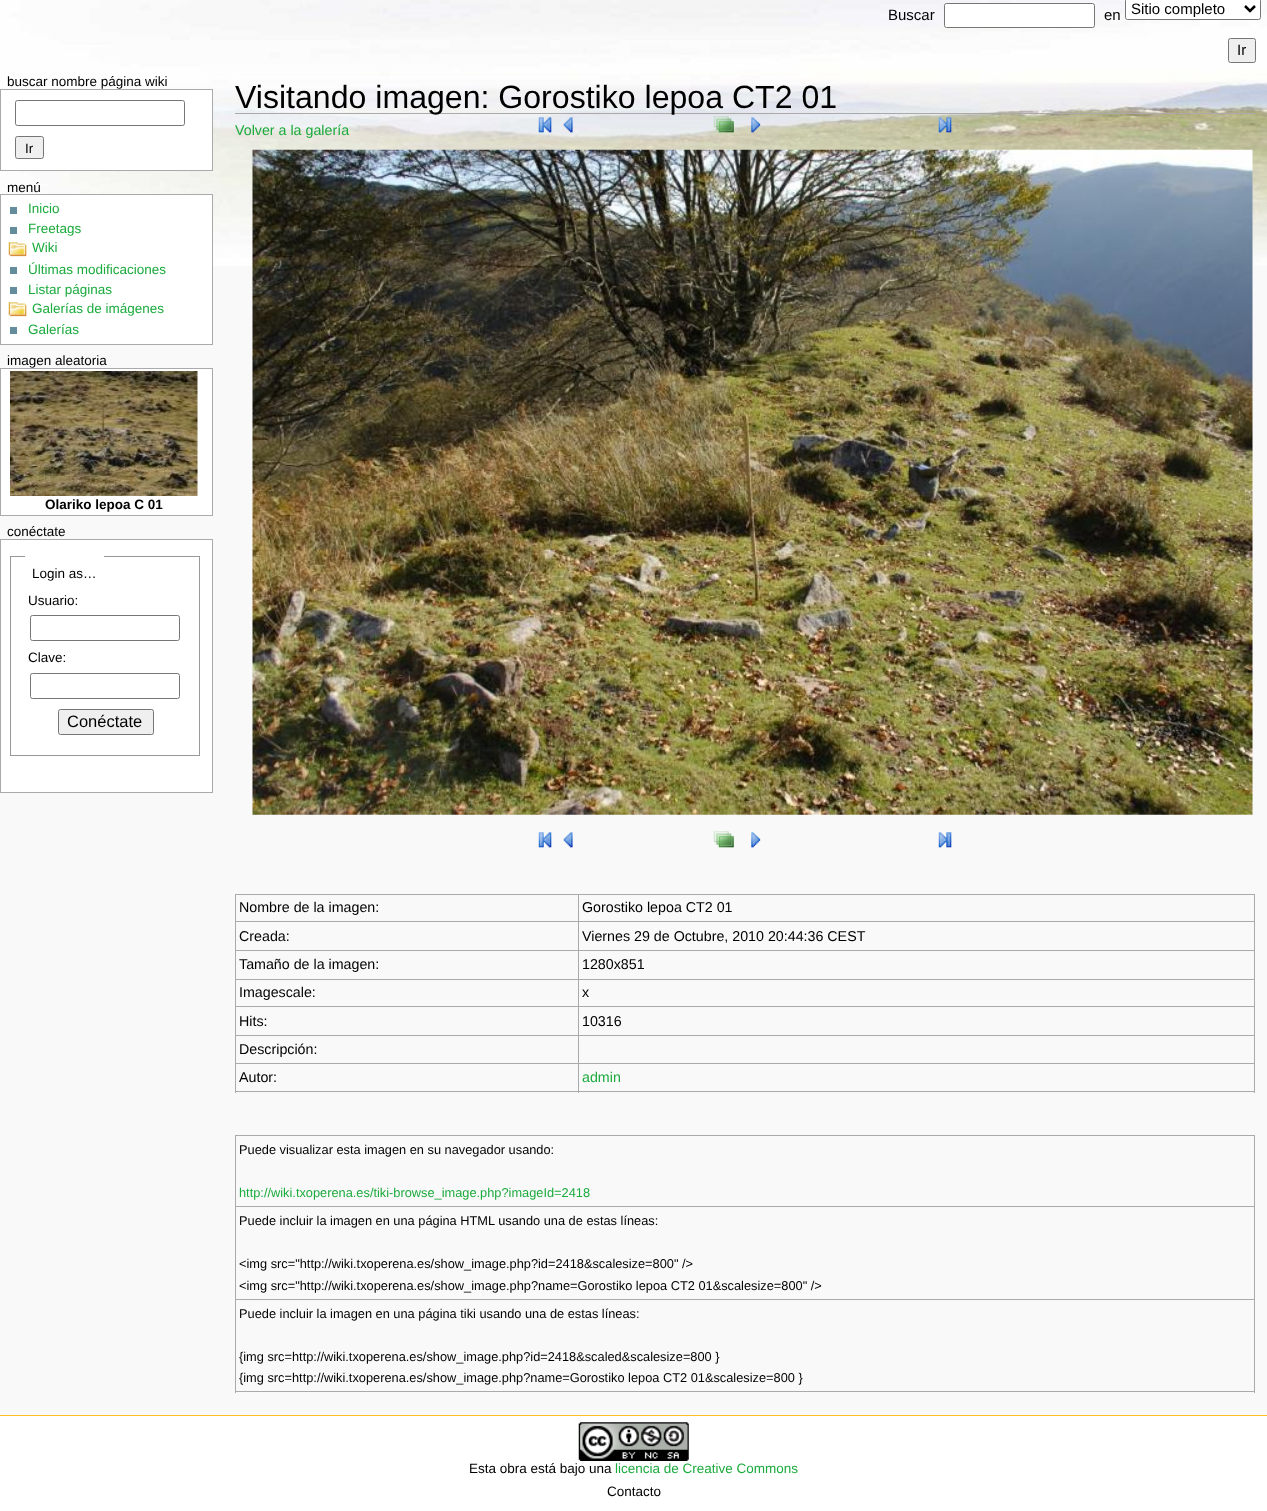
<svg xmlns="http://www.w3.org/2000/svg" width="1267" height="1511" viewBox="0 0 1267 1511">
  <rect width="100%" height="100%" fill="rgb(249,249,249)"/>
  <image x="0" y="0" width="1267" height="266" href="pic1.png"/>
  <text x="888" y="20" font-family="Liberation Sans" font-size="15" fill="rgb(0,0,0)">Buscar</text>
  <rect x="944.5" y="3.5" width="150" height="24" rx="2" fill="rgb(255,255,255)" stroke="rgb(118,118,118)"/>
  <text x="1104" y="20" font-family="Liberation Sans" font-size="15" fill="rgb(0,0,0)">en</text>
  <rect x="1125.5" y="-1.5" width="135" height="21" rx="2" fill="rgb(255,255,255)" stroke="rgb(118,118,118)"/>
  <path d="M1245 6L1250 11L1255 6" fill="none" stroke="rgb(0,0,0)" stroke-width="2.5"/>
  <text x="1131" y="14" font-family="Liberation Sans" font-size="15" fill="rgb(0,0,0)">Sitio completo</text>
  <rect x="1228.5" y="38.5" width="27" height="24" rx="2" fill="rgb(239,239,239)" stroke="rgb(118,118,118)"/>
  <text x="1237" y="55" font-family="Liberation Sans" font-size="15" fill="rgb(0,0,0)">Ir</text>
  <text x="7" y="86" font-family="Liberation Sans" font-size="13.5" fill="rgb(0,0,0)">buscar nombre página wiki</text>
  <rect x="0.5" y="89.5" width="212" height="81" fill="rgb(255,255,255)" stroke="rgb(170,170,170)"/>
  <rect x="15.5" y="100.5" width="169" height="25" rx="2" fill="none" stroke="rgb(118,118,118)"/>
  <rect x="15.5" y="136.5" width="28" height="22" rx="2" fill="rgb(239,239,239)" stroke="rgb(118,118,118)"/>
  <g font-family="Liberation Sans" font-size="13.5" fill="rgb(0,0,0)">
    <text x="25" y="153">Ir</text>
    <text x="7" y="192">menú</text>
  </g>
  <rect x="0.5" y="194.5" width="212" height="150" fill="rgb(255,255,255)" stroke="rgb(170,170,170)"/>
  <text x="28" y="213" font-family="Liberation Sans" font-size="13.5" fill="rgb(28,171,62)">Inicio</text>
  <rect x="10" y="207" width="7" height="7" fill="rgb(99,140,156)"/>
  <text x="28" y="233" font-family="Liberation Sans" font-size="13.5" fill="rgb(28,171,62)">Freetags</text>
  <rect x="10" y="227" width="7" height="7" fill="rgb(99,140,156)"/>
  <image x="8" y="242" width="19" height="15" href="pic2.png"/>
  <g font-family="Liberation Sans" font-size="13.5" fill="rgb(28,171,62)">
    <text x="32" y="252">Wiki</text>
    <text x="28" y="274">Últimas modificaciones</text>
  </g>
  <rect x="10" y="267" width="7" height="7" fill="rgb(99,140,156)"/>
  <text x="28" y="294" font-family="Liberation Sans" font-size="13.5" fill="rgb(28,171,62)">Listar páginas</text>
  <rect x="10" y="287" width="7" height="7" fill="rgb(99,140,156)"/>
  <image x="8" y="302" width="19" height="15" href="pic2.png"/>
  <g font-family="Liberation Sans" font-size="13.5" fill="rgb(28,171,62)">
    <text x="32" y="313">Galerías de imágenes</text>
    <text x="28" y="334">Galerías</text>
  </g>
  <rect x="10" y="327" width="7" height="7" fill="rgb(99,140,156)"/>
  <text x="7" y="365" font-family="Liberation Sans" font-size="13.5" fill="rgb(0,0,0)">imagen aleatoria</text>
  <rect x="0.5" y="368.5" width="212" height="147" fill="rgb(255,255,255)" stroke="rgb(170,170,170)"/>
  <image x="10" y="371" width="188" height="125" href="pic3.png"/>
  <text x="45" y="509" font-family="Liberation Sans" font-size="13.5" font-weight="bold" fill="rgb(0,0,0)">Olariko lepoa C 01</text>
  <text x="7" y="536" font-family="Liberation Sans" font-size="13.5" fill="rgb(0,0,0)">conéctate</text>
  <rect x="0.5" y="539.5" width="212" height="253" fill="rgb(255,255,255)" stroke="rgb(170,170,170)"/>
  <rect x="10.5" y="556.5" width="189" height="199" fill="none" stroke="rgb(153,153,153)"/>
  <rect x="25" y="556" width="79" height="1" fill="rgb(255,255,255)"/>
  <g font-family="Liberation Sans" font-size="13.5" fill="rgb(0,0,0)">
    <text x="32" y="578">Login as…</text>
    <text x="28" y="605">Usuario:</text>
  </g>
  <rect x="30.5" y="615.5" width="149" height="25" rx="2" fill="none" stroke="rgb(118,118,118)"/>
  <text x="28" y="662" font-family="Liberation Sans" font-size="13.5" fill="rgb(0,0,0)">Clave:</text>
  <rect x="30.5" y="673.5" width="149" height="25" rx="2" fill="none" stroke="rgb(118,118,118)"/>
  <rect x="58.5" y="709.5" width="95" height="25" rx="2" fill="rgb(239,239,239)" stroke="rgb(118,118,118)"/>
  <text x="67" y="727" font-family="Liberation Sans" font-size="16.5" fill="rgb(0,0,0)">Conéctate</text>
  <rect x="235" y="113" width="1020" height="1" fill="rgb(170,170,170)"/>
  <text x="235" y="108" font-family="Liberation Sans" font-size="32.1" fill="rgb(0,0,0)">Visitando imagen: Gorostiko lepoa CT2 01</text>
  <text x="235" y="135" font-family="Liberation Sans" font-size="14.25" fill="rgb(28,171,62)">Volver a la galería</text>
  <image x="538" y="117" width="14" height="16" href="pic4.png"/>
  <image x="563" y="117" width="10" height="16" href="pic5.png"/>
  <image x="713" y="116" width="21" height="17" href="pic6.png"/>
  <image x="751" y="117" width="10" height="16" href="pic7.png"/>
  <image x="938" y="117" width="14" height="16" href="pic8.png"/>
  <image x="252" y="149" width="1001" height="666" href="pic9.png"/>
  <image x="538" y="832" width="14" height="16" href="pic10.png"/>
  <image x="563" y="832" width="10" height="16" href="pic11.png"/>
  <image x="713" y="831" width="21" height="17" href="pic12.png"/>
  <image x="751" y="832" width="10" height="16" href="pic13.png"/>
  <image x="938" y="832" width="14" height="16" href="pic14.png"/>
  <rect x="235" y="894" width="1020" height="1" fill="rgb(170,170,170)"/>
  <rect x="1254" y="894" width="1" height="199" fill="rgb(170,170,170)"/>
  <rect x="235" y="1091" width="1020" height="1" fill="rgb(170,170,170)"/>
  <rect x="235" y="894" width="1" height="199" fill="rgb(170,170,170)"/>
  <text x="239" y="912" font-family="Liberation Sans" font-size="14.25" fill="rgb(0,0,0)">Nombre de la imagen:</text>
  <rect x="578" y="921" width="677" height="1" fill="rgb(170,170,170)"/>
  <rect x="578" y="950" width="677" height="1" fill="rgb(170,170,170)"/>
  <rect x="578" y="979" width="677" height="1" fill="rgb(170,170,170)"/>
  <rect x="578" y="1006" width="677" height="1" fill="rgb(170,170,170)"/>
  <rect x="578" y="1035" width="677" height="1" fill="rgb(170,170,170)"/>
  <rect x="578" y="1063" width="677" height="1" fill="rgb(170,170,170)"/>
  <rect x="578" y="1063" width="1" height="30" fill="rgb(170,170,170)"/>
  <rect x="235" y="1063" width="344" height="1" fill="rgb(170,170,170)"/>
  <rect x="578" y="1035" width="1" height="29" fill="rgb(170,170,170)"/>
  <rect x="235" y="1035" width="344" height="1" fill="rgb(170,170,170)"/>
  <rect x="578" y="1006" width="1" height="30" fill="rgb(170,170,170)"/>
  <rect x="235" y="1006" width="344" height="1" fill="rgb(170,170,170)"/>
  <rect x="578" y="979" width="1" height="29" fill="rgb(170,170,170)"/>
  <rect x="235" y="979" width="344" height="1" fill="rgb(170,170,170)"/>
  <rect x="578" y="950" width="1" height="30" fill="rgb(170,170,170)"/>
  <rect x="235" y="950" width="344" height="1" fill="rgb(170,170,170)"/>
  <rect x="578" y="921" width="1" height="30" fill="rgb(170,170,170)"/>
  <rect x="235" y="921" width="344" height="1" fill="rgb(170,170,170)"/>
  <rect x="578" y="894" width="1" height="29" fill="rgb(170,170,170)"/>
  <g font-family="Liberation Sans" font-size="14.25" fill="rgb(0,0,0)">
    <text x="582" y="912">Gorostiko lepoa CT2 01</text>
    <text x="239" y="941">Creada:</text>
    <text x="582" y="941">Viernes 29 de Octubre, 2010 20:44:36 CEST</text>
    <text x="239" y="969">Tamaño de la imagen:</text>
    <text x="582" y="969">1280x851</text>
    <text x="239" y="997">Imagescale:</text>
    <text x="582" y="997">x</text>
    <text x="239" y="1026">Hits:</text>
    <text x="582" y="1026">10316</text>
    <text>
      <tspan x="239" y="1054">Descripción:</tspan>
      <tspan x="239" y="1082">Autor:</tspan>
    </text>
  </g>
  <text x="582" y="1082" font-family="Liberation Sans" font-size="14.25" fill="rgb(28,171,62)">admin</text>
  <rect x="235" y="1135" width="1020" height="1" fill="rgb(170,170,170)"/>
  <rect x="1254" y="1135" width="1" height="258" fill="rgb(170,170,170)"/>
  <rect x="235" y="1391" width="1020" height="1" fill="rgb(170,170,170)"/>
  <rect x="235" y="1135" width="1" height="258" fill="rgb(170,170,170)"/>
  <text x="239" y="1154" font-family="Liberation Sans" font-size="12.8" fill="rgb(0,0,0)">Puede visualizar esta imagen en su navegador usando:</text>
  <text x="239" y="1197" font-family="Liberation Sans" font-size="12.8" fill="rgb(28,171,62)">http://wiki.txoperena.es/tiki-browse_image.php?imageId=2418</text>
  <rect x="235" y="1206" width="1020" height="1" fill="rgb(170,170,170)"/>
  <g font-family="Liberation Sans" font-size="12.8" fill="rgb(0,0,0)">
    <text x="239" y="1225">Puede incluir la imagen en una página HTML usando una de estas líneas:</text>
    <text>
      <tspan x="239" y="1268">&lt;img src="http://wiki.txoperena.es/show_image.php?id=2418&amp;scalesize=800" /&gt;</tspan>
      <tspan x="239" y="1290">&lt;img src="http://wiki.txoperena.es/show_image.php?name=Gorostiko lepoa CT2 01&amp;scalesize=800" /&gt;</tspan>
    </text>
  </g>
  <rect x="235" y="1299" width="1020" height="1" fill="rgb(170,170,170)"/>
  <g font-family="Liberation Sans" font-size="12.8" fill="rgb(0,0,0)">
    <text x="239" y="1318">Puede incluir la imagen en una página tiki usando una de estas líneas:</text>
    <text>
      <tspan x="239" y="1361">{img src=http://wiki.txoperena.es/show_image.php?id=2418&amp;scaled&amp;scalesize=800 }</tspan>
      <tspan x="239" y="1382">{img src=http://wiki.txoperena.es/show_image.php?name=Gorostiko lepoa CT2 01&amp;scalesize=800 }</tspan>
    </text>
  </g>
  <rect x="0" y="1416" width="1267" height="95" fill="rgb(255,255,255)"/>
  <rect x="0" y="1415" width="1267" height="1" fill="rgb(250,189,35)"/>
  <image x="578" y="1422" width="111" height="39" href="pic15.png"/>
  <text x="469" y="1473" font-family="Liberation Sans" font-size="13.5" fill="rgb(0,0,0)">Esta obra está bajo una</text>
  <text x="615" y="1473" font-family="Liberation Sans" font-size="13.5" fill="rgb(28,171,62)">licencia de Creative Commons</text>
  <text x="607" y="1496" font-family="Liberation Sans" font-size="13.5" fill="rgb(0,0,0)">Contacto</text>
</svg>
